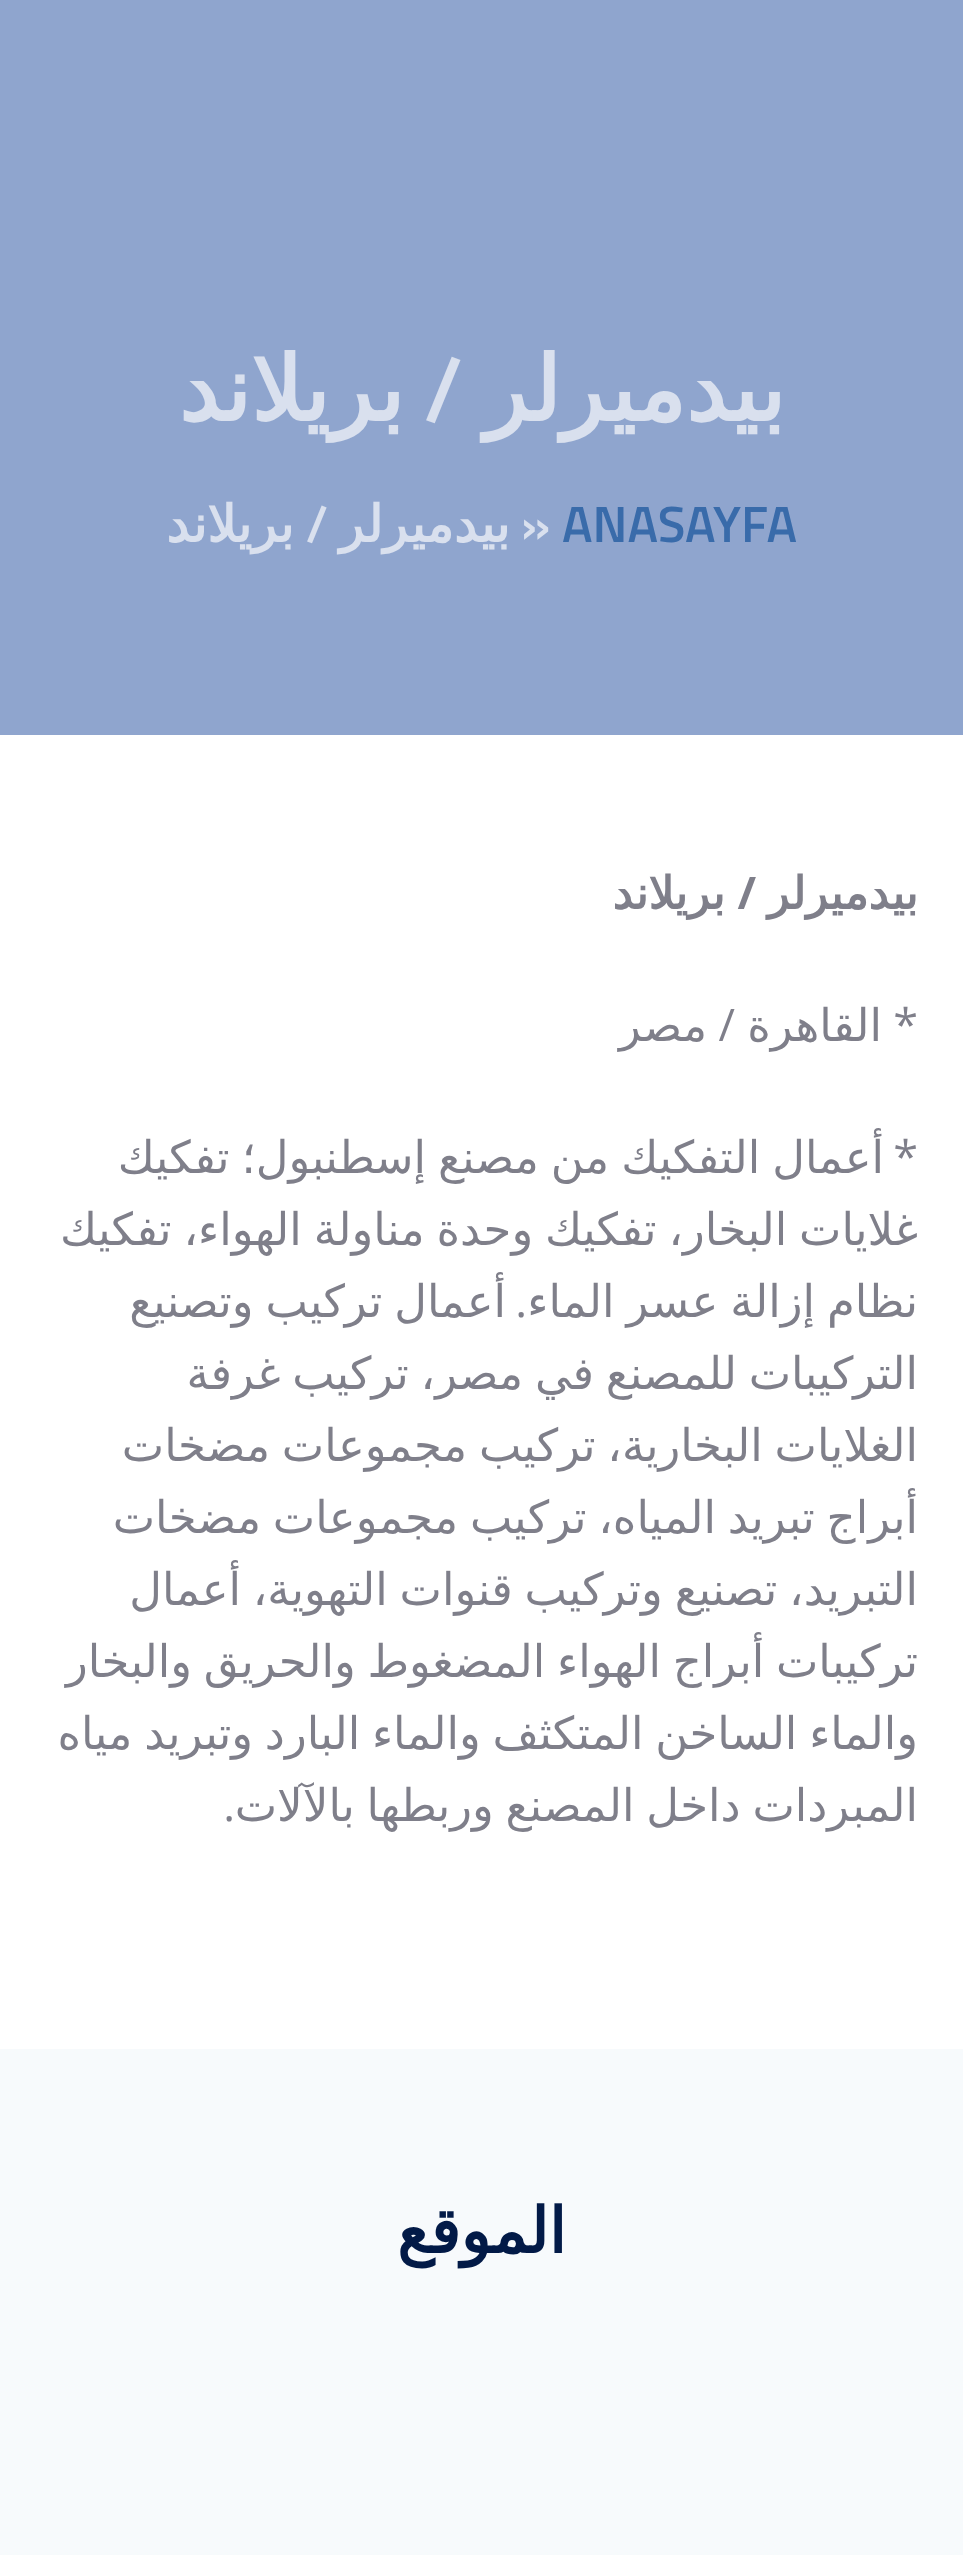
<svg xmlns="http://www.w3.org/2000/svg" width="963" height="2555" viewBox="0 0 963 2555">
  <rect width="100%" height="100%" fill="rgb(255,255,255)"/>
  <rect x="0" y="0" width="963" height="735" fill="rgb(143,165,206)"/>
  <text x="785" y="421" font-family="DejaVu Sans" font-size="90" font-weight="bold" direction="rtl" fill="rgb(217,224,238)">بيدميرلر</text>
  <text x="463" y="421" font-family="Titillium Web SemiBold" font-size="90" font-weight="600" direction="rtl" fill="rgb(217,224,238)">/</text>
  <text x="404" y="421" font-family="DejaVu Sans" font-size="90" font-weight="bold" direction="rtl" fill="rgb(217,224,238)">بريلاند</text>
  <text x="562" y="542" font-family="Titillium Web SemiBold" font-size="51" font-weight="600" fill="rgb(57,107,170)">ANASAYFA</text>
  <text x="521" y="542" font-family="Titillium Web SemiBold" font-size="51" font-weight="600" fill="rgb(217,224,238)">»</text>
  <text x="510" y="542" font-family="DejaVu Sans" font-size="51" font-weight="bold" direction="rtl" fill="rgb(217,224,238)">بيدميرلر</text>
  <text x="328" y="542" font-family="Titillium Web SemiBold" font-size="51" font-weight="600" direction="rtl" fill="rgb(217,224,238)">/</text>
  <text x="294" y="542" font-family="DejaVu Sans" font-size="51" font-weight="bold" direction="rtl" fill="rgb(217,224,238)">بريلاند</text>
  <text x="918" y="909" font-family="DejaVu Sans" font-size="45" font-weight="bold" direction="rtl" fill="rgb(127,127,138)">بيدميرلر</text>
  <text x="756" y="909" font-family="Open Sans" font-size="45" font-weight="bold" direction="rtl" fill="rgb(127,127,138)">/</text>
  <text x="725" y="909" font-family="DejaVu Sans" font-size="45" font-weight="bold" direction="rtl" fill="rgb(127,127,138)">بريلاند</text>
  <text x="918" y="1041" font-family="Open Sans" font-size="45" direction="rtl" fill="rgb(127,127,138)">*</text>
  <text x="882" y="1041" font-family="DejaVu Sans" font-size="45" direction="rtl" fill="rgb(127,127,138)">القاهرة</text>
  <text x="735" y="1041" font-family="Open Sans" font-size="45" direction="rtl" fill="rgb(127,127,138)">/</text>
  <text x="707" y="1041" font-family="DejaVu Sans" font-size="45" direction="rtl" fill="rgb(127,127,138)">مصر</text>
  <text x="918" y="1173" font-family="Open Sans" font-size="45" direction="rtl" fill="rgb(127,127,138)">*</text>
  <g font-family="DejaVu Sans" font-size="45" direction="rtl" fill="rgb(127,127,138)">
    <text x="884" y="1173" word-spacing="-2.25">أعمال التفكيك من مصنع إسطنبول؛ تفكيك</text>
    <text>
      <tspan x="918" y="1245" word-spacing="-2.5">غلايات البخار، تفكيك وحدة مناولة الهواء، تفكيك</tspan>
      <tspan x="918" y="1317" word-spacing="-2.25">نظام إزالة عسر الماء</tspan>
    </text>
  </g>
  <text x="527" y="1317" font-family="Open Sans" font-size="45" direction="rtl" fill="rgb(127,127,138)">.</text>
  <g font-family="DejaVu Sans" font-size="45" direction="rtl" fill="rgb(127,127,138)">
    <text x="506" y="1317" word-spacing="-2.25">أعمال تركيب وتصنيع</text>
    <text>
      <tspan x="918" y="1389" word-spacing="-2.5">التركيبات للمصنع في مصر، تركيب غرفة</tspan>
      <tspan x="918" y="1461" word-spacing="-2.5">الغلايات البخارية، تركيب مجموعات مضخات</tspan>
      <tspan x="918" y="1533" word-spacing="-2.5">أبراج تبريد المياه، تركيب مجموعات مضخات</tspan>
      <tspan x="918" y="1605" word-spacing="-2.5">التبريد، تصنيع وتركيب قنوات التهوية، أعمال</tspan>
      <tspan x="918" y="1677" word-spacing="-2.5">تركيبات أبراج الهواء المضغوط والحريق والبخار</tspan>
      <tspan x="918" y="1749" word-spacing="-2.5">والماء الساخن المتكثف والماء البارد وتبريد مياه</tspan>
      <tspan x="918" y="1821" word-spacing="-2.5">المبردات داخل المصنع وربطها بالآلات</tspan>
    </text>
  </g>
  <text x="235" y="1821" font-family="Open Sans" font-size="45" direction="rtl" fill="rgb(127,127,138)">.</text>
  <rect x="0" y="2049" width="963" height="506" fill="rgb(247,250,252)"/>
  <text x="566" y="2253" font-family="DejaVu Sans" font-size="63" font-weight="bold" direction="rtl" fill="rgb(2,26,71)">الموقع</text>
</svg>
